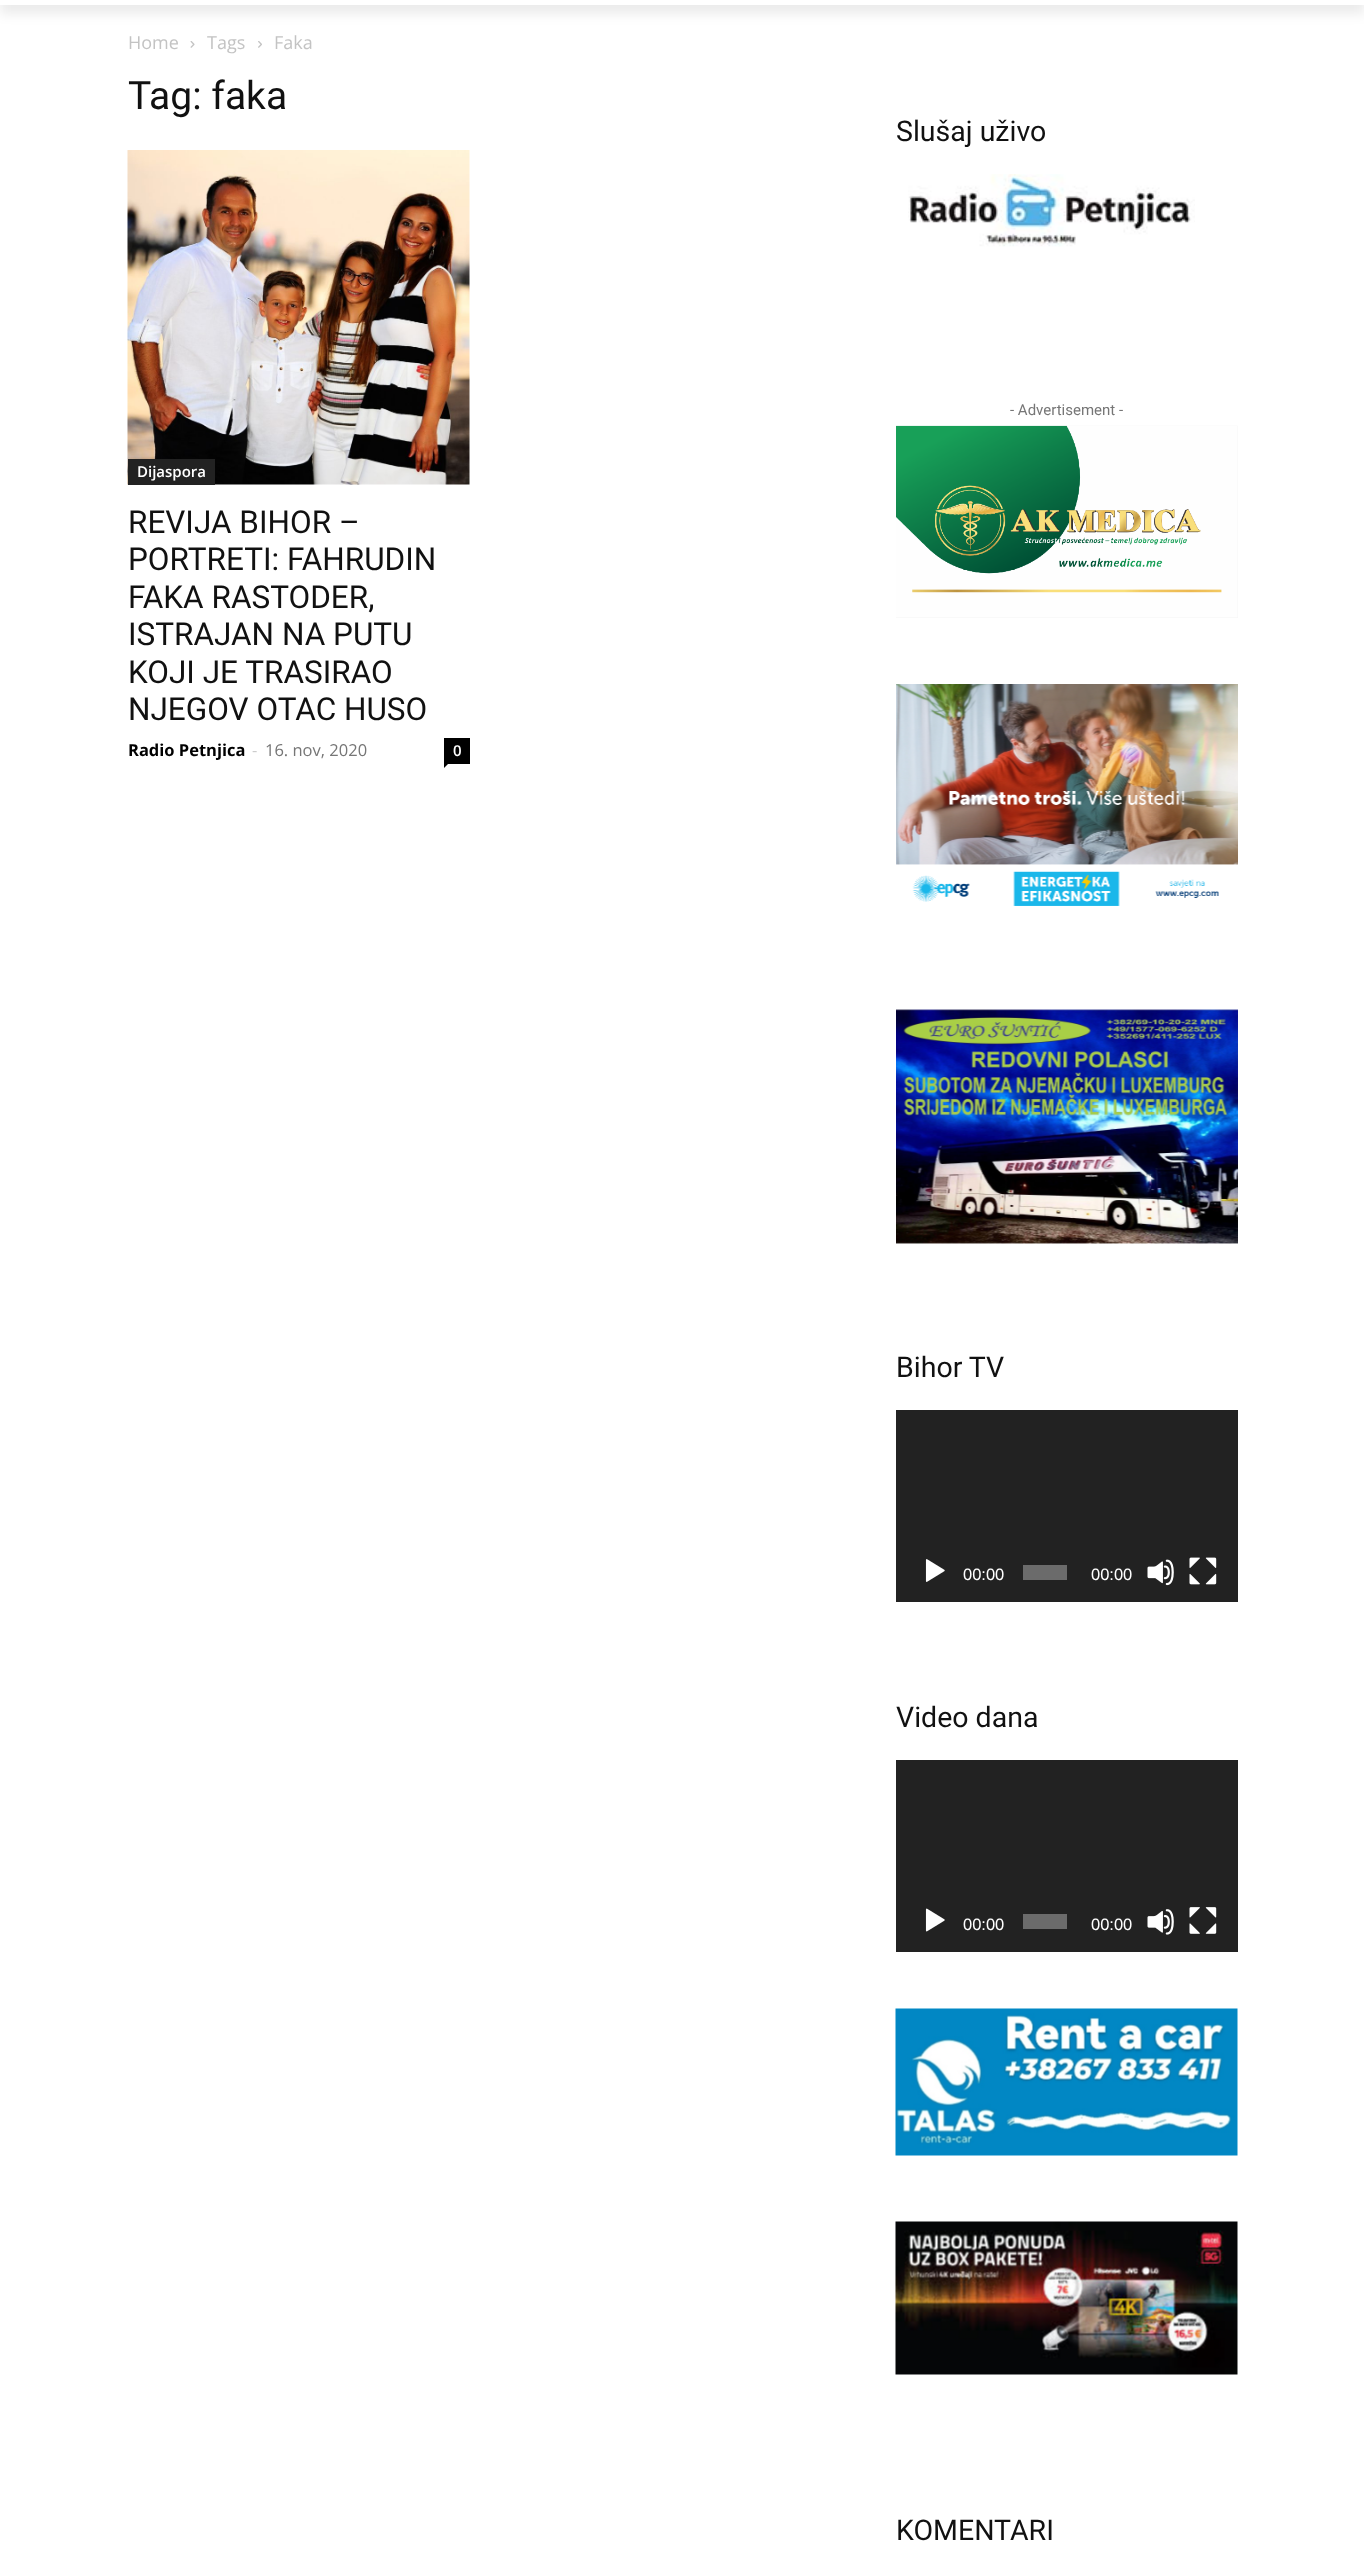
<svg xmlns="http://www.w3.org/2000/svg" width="1364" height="2556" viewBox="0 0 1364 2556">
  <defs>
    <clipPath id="clip1"><path d="M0 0H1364V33H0ZM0-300H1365V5H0Z" clip-rule="evenodd"/></clipPath>
  </defs>
  <rect width="100%" height="100%" fill="rgb(255,255,255)"/>
  <g clip-path="url(#clip1)">
    <rect x="0" y="-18" width="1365" height="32" fill="rgba(0,0,0,0.08)" filter="blur(6px)"/>
  </g>
  <text x="128" y="49" font-family="Open Sans" font-size="18" fill="rgb(195,195,195)">Home</text>
  <image x="190" y="41" width="5" height="7" href="pic1.png"/>
  <text x="207" y="49" font-family="Open Sans" font-size="18" fill="rgb(195,195,195)">Tags</text>
  <image x="258" y="41" width="4" height="7" href="pic2.png"/>
  <text x="274" y="49" font-family="Open Sans" font-size="18" fill="rgb(195,195,195)">Faka</text>
  <text x="128" y="109" font-family="Roboto" font-size="39" fill="rgb(17,17,17)">Tag: faka</text>
  <image x="127" y="150" width="343" height="335" href="pic3.png"/>
  <rect x="128" y="459" width="87" height="26" fill="rgb(34,34,34)"/>
  <text x="137" y="477" font-family="Open Sans" font-size="15" font-weight="600" fill="rgb(255,255,255)">Dijaspora</text>
  <g font-family="Roboto" font-size="31.5" fill="rgb(17,17,17)">
    <text>
      <tspan x="128" y="533">REVIJA BIHOR –</tspan>
      <tspan x="128" y="570">PORTRETI: FAHRUDIN</tspan>
      <tspan x="128" y="608">FAKA RASTODER,</tspan>
      <tspan x="128" y="645">ISTRAJAN NA PUTU</tspan>
      <tspan x="128" y="683">KOJI JE TRASIRAO</tspan>
      <tspan x="128" y="720">NJEGOV OTAC HUSO</tspan>
    </text>
  </g>
  <text x="128" y="756" font-family="Open Sans" font-size="16.5" font-weight="bold" fill="rgb(0,0,0)">Radio Petnjica</text>
  <text x="252" y="756" font-family="Open Sans" font-size="16.5" fill="rgb(204,204,204)">-</text>
  <text x="265" y="756" font-family="Open Sans" font-size="16.5" fill="rgb(118,118,118)">16. nov, 2020</text>
  <rect x="444" y="738" width="26" height="26" fill="rgb(0,0,0)"/>
  <text x="453" y="756" font-family="Open Sans" font-size="15" font-weight="600" fill="rgb(255,255,255)">0</text>
  <path d="M444 763.5H448.5L444 768Z" fill="rgb(0,0,0)"/>
  <text x="896" y="141" font-family="Roboto" font-size="28.5" fill="rgb(17,17,17)">Slušaj uživo</text>
  <image x="908" y="174" width="287" height="73" href="pic4.png"/>
  <text x="1010" y="415" font-family="Roboto" font-size="15" fill="rgb(118,118,118)">- Advertisement -</text>
  <image x="896" y="425" width="342" height="193" href="pic5.png"/>
  <image x="896" y="684" width="342" height="222" href="pic6.png"/>
  <image x="896" y="1009" width="342" height="235" href="pic7.png"/>
  <text x="896" y="1377" font-family="Roboto" font-size="28.5" fill="rgb(17,17,17)">Bihor TV</text>
  <rect x="896" y="1410" width="342" height="192" fill="rgb(34,34,34)"/>
  <image x="925" y="1559" width="20" height="23" href="pic8.png"/>
  <text x="963" y="1580" font-family="Liberation Sans" font-size="16.5" fill="rgb(255,255,255)">00:00</text>
  <rect x="1023" y="1565" width="44" height="15" fill="rgb(107,107,107)"/>
  <text x="1091" y="1580" font-family="Liberation Sans" font-size="16.5" fill="rgb(255,255,255)">00:00</text>
  <image x="1147" y="1559" width="27" height="27" href="pic9.png"/>
  <image x="1189" y="1557" width="28" height="28" href="pic10.png"/>
  <text x="896" y="1727" font-family="Roboto" font-size="28.5" fill="rgb(17,17,17)">Video dana</text>
  <rect x="896" y="1760" width="342" height="192" fill="rgb(34,34,34)"/>
  <image x="925" y="1908" width="20" height="24" href="pic11.png"/>
  <text x="963" y="1930" font-family="Liberation Sans" font-size="16.5" fill="rgb(255,255,255)">00:00</text>
  <rect x="1023" y="1914" width="44" height="15" fill="rgb(107,107,107)"/>
  <text x="1091" y="1930" font-family="Liberation Sans" font-size="16.5" fill="rgb(255,255,255)">00:00</text>
  <image x="1147" y="1909" width="27" height="26" href="pic12.png"/>
  <image x="1189" y="1907" width="28" height="27" href="pic13.png"/>
  <image x="895" y="2008" width="343" height="148" href="pic14.png"/>
  <image x="895" y="2221" width="343" height="154" href="pic15.png"/>
  <text x="896" y="2540" font-family="Roboto" font-size="28.5" fill="rgb(17,17,17)">KOMENTARI</text>
</svg>
